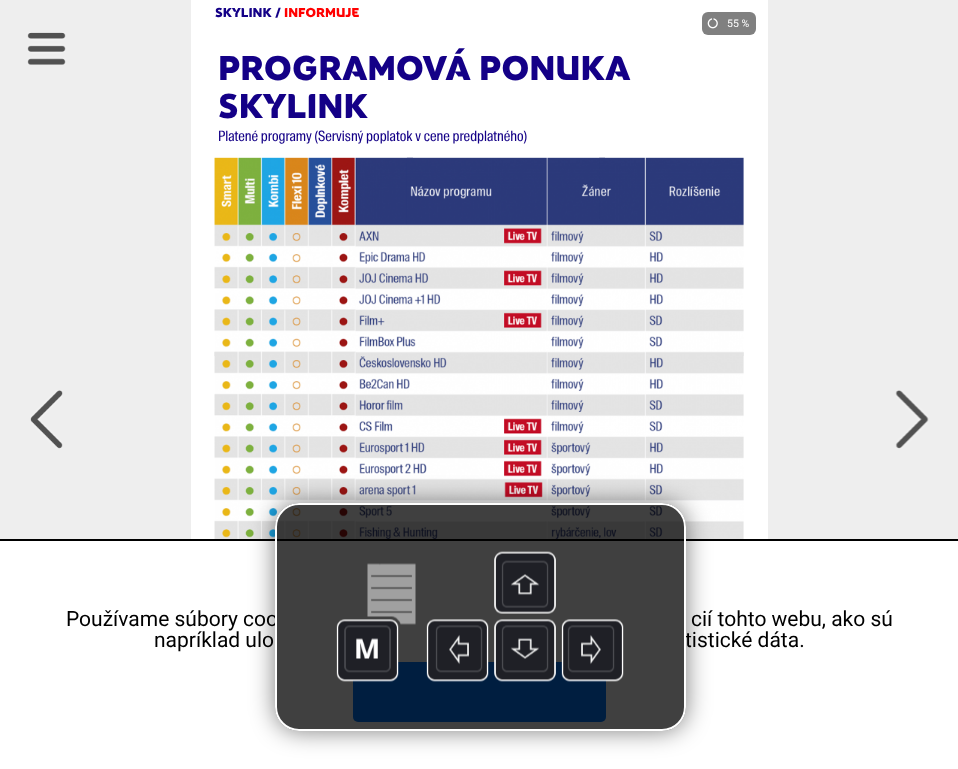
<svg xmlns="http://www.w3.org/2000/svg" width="958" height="769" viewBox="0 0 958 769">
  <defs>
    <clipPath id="clip1"><path d="M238 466H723V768H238ZM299 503H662C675.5 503 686 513.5 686 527V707C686 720.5 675.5 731 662 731H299C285.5 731 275 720.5 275 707V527C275 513.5 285.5 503 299 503Z" clip-rule="evenodd"/></clipPath>
  </defs>
  <rect width="100%" height="100%" fill="rgb(238,238,238)"/>
  <image x="27" y="32" width="39" height="33" href="pic1.png"/>
  <rect x="191" y="0" width="577" height="539" fill="rgb(255,255,255)"/>
  <text x="215" y="17" font-family="'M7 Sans'" font-size="12.75" fill="rgb(20,0,135)">SKYLINK /</text>
  <text x="284" y="17" font-family="'M7 Sans'" font-size="12.75" fill="rgb(255,0,0)">INFORMUJE</text>
  <g font-family="'M7 Sans'" font-size="33.75" fill="rgb(20,0,135)">
    <text>
      <tspan x="218" y="80">PROGRAMOVÁ PONUKA</tspan>
      <tspan x="218" y="118">SKYLINK</tspan>
    </text>
  </g>
  <text x="218" y="141" font-family="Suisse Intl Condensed" font-size="14.25" fill="rgb(20,0,135)">Platené programy (Servisný poplatok v cene predplatného)</text>
  <image x="214" y="157" width="199" height="199" href="pic2.png"/>
  <image x="406" y="157" width="199" height="199" href="pic3.png"/>
  <image x="599" y="157" width="145" height="199" href="pic4.png"/>
  <image x="214" y="352" width="199" height="187" href="pic5.png"/>
  <image x="406" y="356" width="194" height="183" href="pic6.png"/>
  <image x="599" y="352" width="145" height="187" href="pic7.png"/>
  <rect x="702" y="12" width="54" height="23" rx="6" fill="rgb(128,128,128)"/>
  <image x="707" y="18" width="11" height="11" href="pic8.png"/>
  <text x="727" y="27" font-family="Roboto" font-size="10.5" fill="rgb(255,255,255)">55 %</text>
  <image x="30" y="390" width="33" height="59" href="pic9.png"/>
  <image x="895" y="390" width="34" height="59" href="pic10.png"/>
  <rect x="0" y="541" width="958" height="228" fill="rgb(255,255,255)"/>
  <rect x="0" y="539" width="958" height="2" fill="rgb(0,0,0)"/>
  <rect x="353" y="662" width="253" height="60" rx="5" fill="rgb(0,122,255)"/>
  <g clip-path="url(#clip1)">
    <rect x="275" y="503" width="411" height="228" rx="24" fill="rgba(0,0,0,0.5)" filter="blur(12px)"/>
  </g>
  <g font-family="Roboto" font-size="21" fill="rgb(0,0,0)">
    <text x="66" y="626">Používame súbory coo</text>
    <text x="685" y="647">tistické dáta.</text>
  </g>
  <rect x="275" y="503" width="411" height="228" rx="24" fill="rgba(0,0,0,0.75)"/>
  <image x="336" y="551" width="288" height="131" href="pic11.png"/>
  <rect x="276" y="504" width="409" height="226" rx="23" fill="none" stroke="rgb(255,255,255)" stroke-width="2"/>
  <g font-family="Roboto" font-size="21" fill="rgb(0,0,0)">
    <text x="691" y="626">cií tohto webu, ako sú</text>
    <text x="154" y="647">napríklad ulo</text>
  </g>
</svg>
